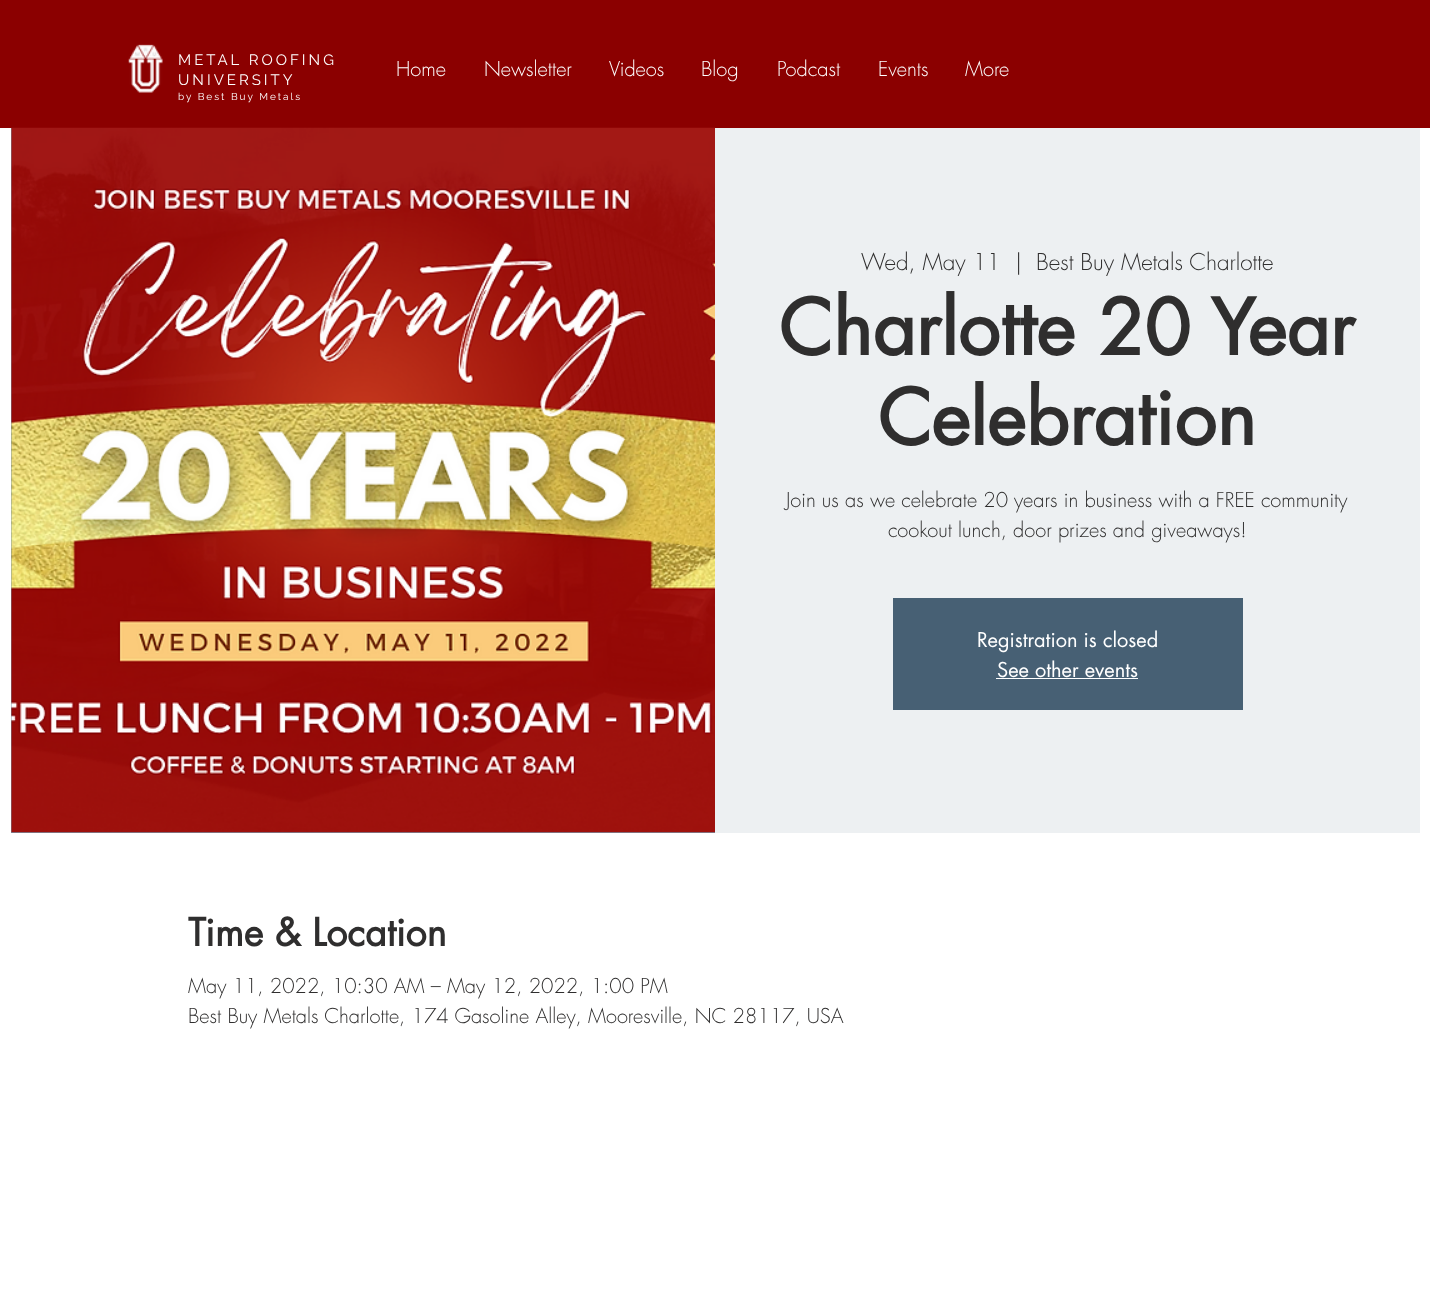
<svg xmlns="http://www.w3.org/2000/svg" width="1430" height="1309" viewBox="0 0 1430 1309">
  <rect width="100%" height="100%" fill="rgb(255,255,255)"/>
  <rect x="0" y="0" width="1430" height="128" fill="rgb(139,0,0)"/>
  <image x="128" y="44" width="35" height="49" href="pic1.png"/>
  <g font-family="Raleway" font-size="15" letter-spacing="3" fill="rgb(255,255,255)">
    <text>
      <tspan x="178" y="65">METAL ROOFING</tspan>
      <tspan x="178" y="85">UNIVERSITY</tspan>
    </text>
  </g>
  <g font-family="futura" font-size="20" font-weight="300" fill="rgb(255,255,255)">
    <text x="396" y="76">Home</text>
    <text x="484" y="76">Newsletter</text>
    <text x="609" y="76">Videos</text>
    <text x="701" y="76">Blog</text>
    <text x="777" y="76">Podcast</text>
    <text x="878" y="76">Events</text>
    <text x="965" y="76">More</text>
  </g>
  <text x="178" y="100" font-family="Raleway" font-size="10" letter-spacing="2" fill="rgb(255,255,255)">by Best Buy Metals</text>
  <rect x="11" y="128" width="704" height="705" fill="rgb(120,144,163)"/>
  <image x="11" y="127" width="704" height="706" href="pic2.png"/>
  <rect x="715" y="128" width="705" height="705" fill="rgb(237,240,242)"/>
  <g font-family="futura" font-size="22.5" font-weight="300" fill="rgb(47,46,46)">
    <text x="861" y="270">Wed, May 11</text>
    <text x="1015" y="270">|</text>
    <text x="1036" y="270">Best Buy Metals Charlotte</text>
  </g>
  <g font-family="futura" font-size="75" font-weight="bold" fill="rgb(47,46,46)">
    <text x="779" y="355">Charlotte 20 Year</text>
    <text x="878" y="445">Celebration</text>
  </g>
  <g font-family="futura" font-size="20" font-weight="300" fill="rgb(47,46,46)">
    <text x="786" y="507">Join us as we celebrate 20 years in business with a FREE community</text>
    <text x="888" y="537">cookout lunch, door prizes and giveaways!</text>
  </g>
  <rect x="893" y="598" width="350" height="112" fill="rgb(71,96,116)"/>
  <g font-family="futura" font-size="20" fill="rgb(255,255,255)">
    <text x="977" y="647">Registration is closed</text>
    <text x="997" y="677">See other events</text>
  </g>
  <rect x="996" y="678" width="142" height="1" fill="rgb(255,255,255)"/>
  <text x="188" y="946" font-family="futura" font-size="37.5" font-weight="bold" fill="rgb(47,46,46)">Time &amp; Location</text>
  <g font-family="futura" font-size="20" font-weight="300" fill="rgb(47,46,46)">
    <text>
      <tspan x="188" y="993">May 11, 2022, 10:30 AM – May 12, 2022, 1:00 PM</tspan>
      <tspan x="188" y="1023">Best Buy Metals Charlotte, 174 Gasoline Alley, Mooresville, NC 28117, USA</tspan>
    </text>
  </g>
</svg>
